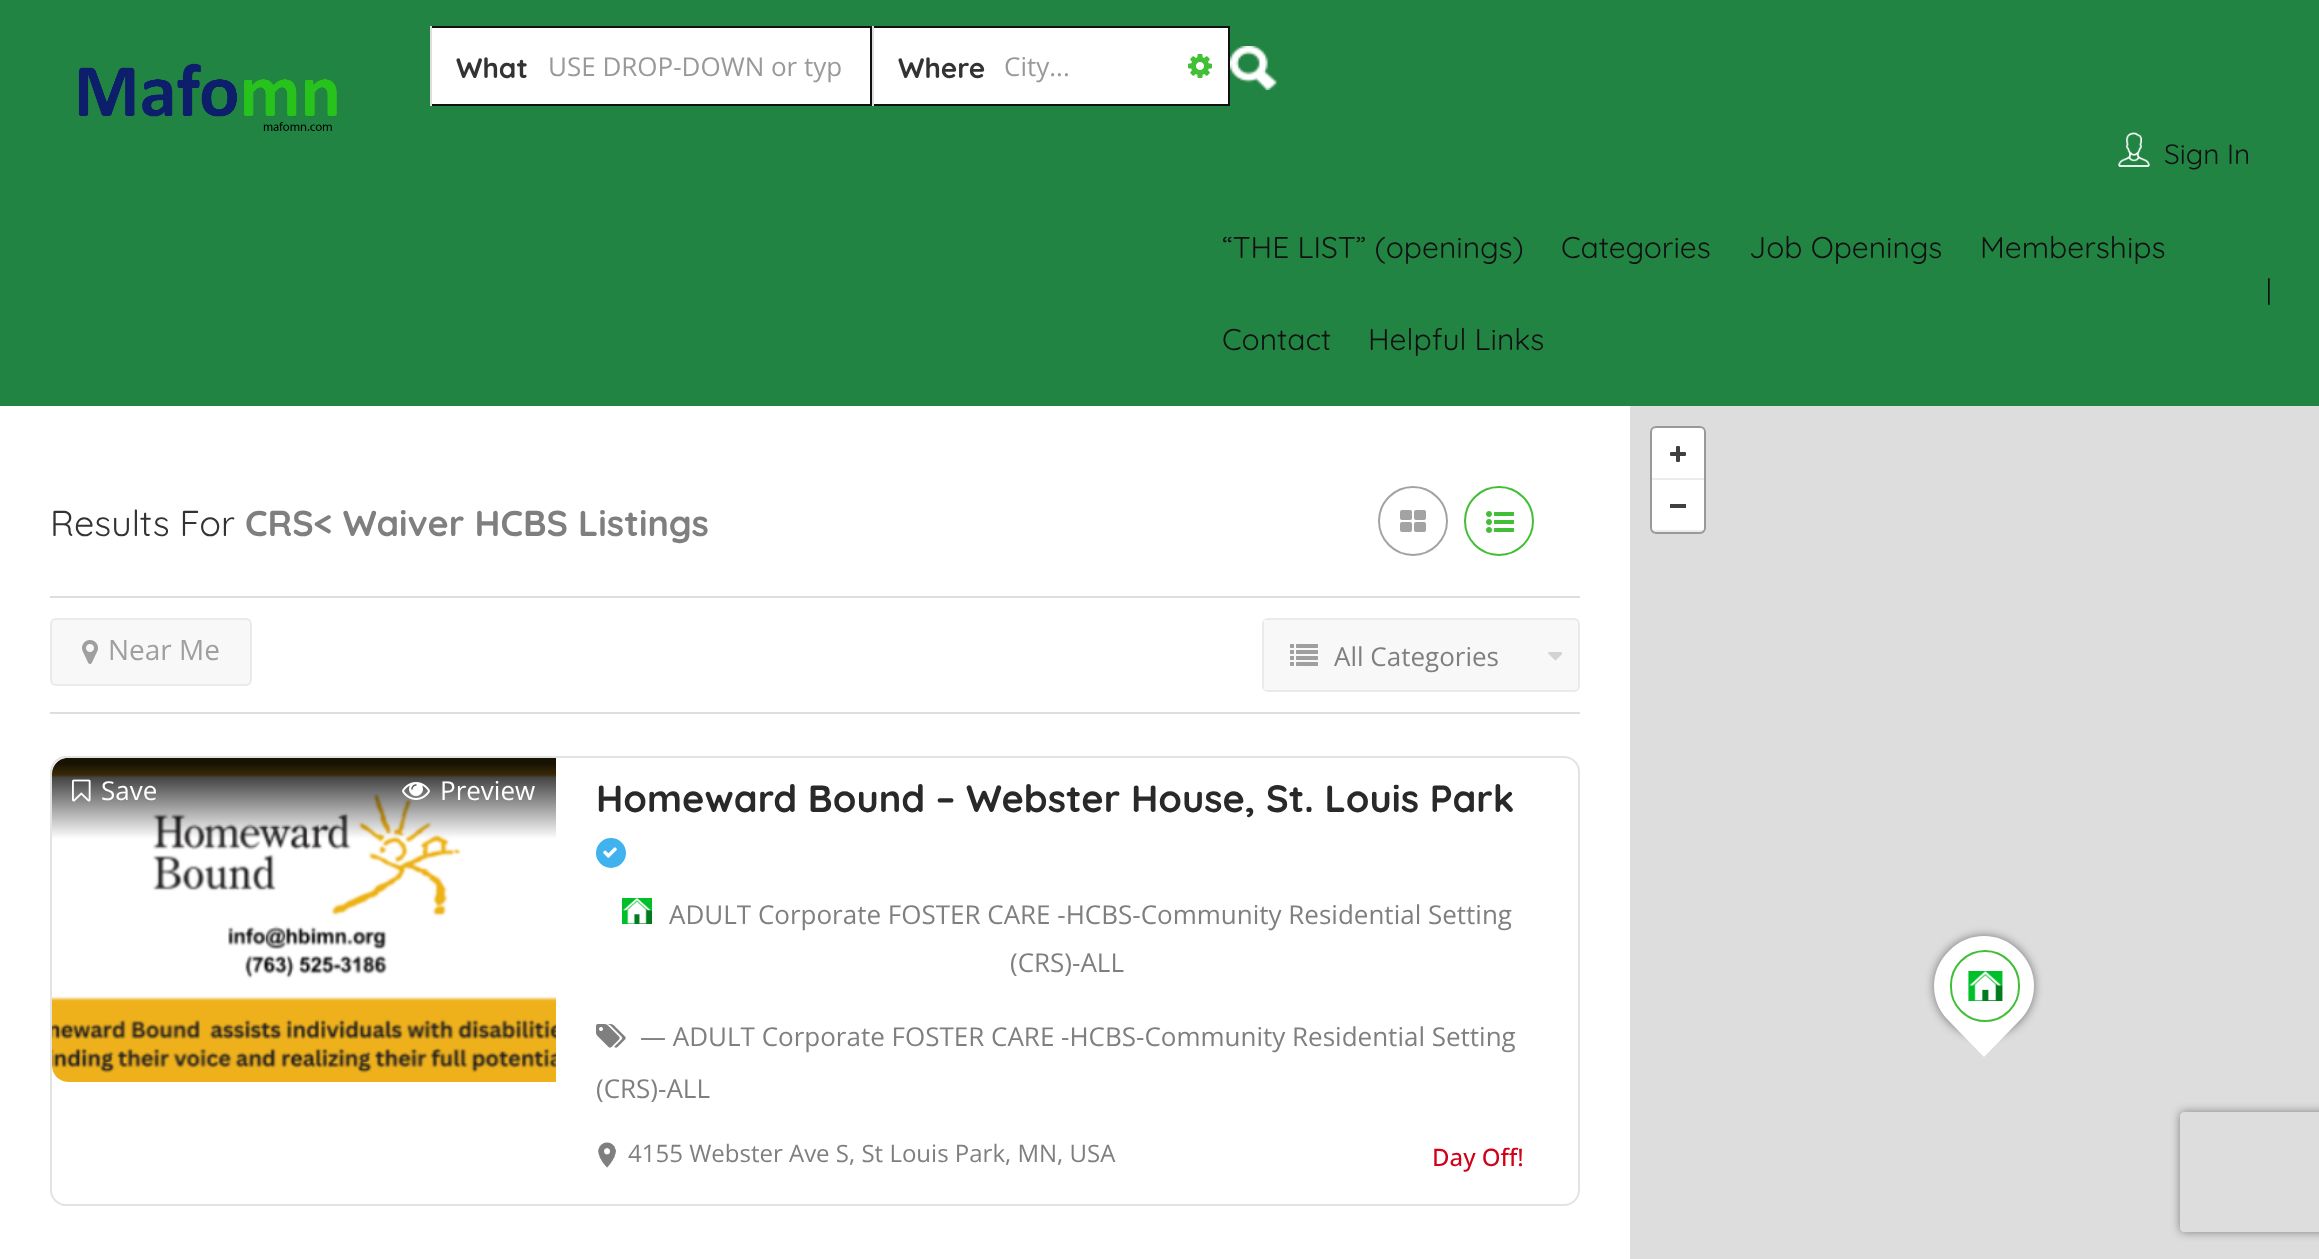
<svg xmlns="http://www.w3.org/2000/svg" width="2319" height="1259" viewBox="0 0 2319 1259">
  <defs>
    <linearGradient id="g1" gradientUnits="userSpaceOnUse" x1="304" y1="846" x2="304" y2="758"><stop offset="0.08" stop-color="rgb(0,0,0)" stop-opacity="0"/><stop offset="0.94" stop-color="rgb(0,0,0)" stop-opacity="0.9"/></linearGradient>
    <clipPath id="clip1"><path d="M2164 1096H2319V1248H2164ZM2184 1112H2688C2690 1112 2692 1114 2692 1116V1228C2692 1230 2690 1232 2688 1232H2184C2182 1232 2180 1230 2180 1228V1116C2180 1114 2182 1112 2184 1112Z" clip-rule="evenodd"/></clipPath>
  </defs>
  <rect width="100%" height="100%" fill="rgb(255,255,255)"/>
  <rect x="0" y="0" width="2319" height="406" fill="rgb(34,132,67)"/>
  <image x="78" y="63" width="259" height="68" href="pic1.png"/>
  <rect x="432" y="28" width="438" height="76" fill="rgb(255,255,255)"/>
  <rect x="430" y="26" width="800" height="2" fill="rgb(17,17,17)"/>
  <rect x="870" y="26" width="2" height="80" fill="rgb(17,17,17)"/>
  <rect x="430" y="104" width="442" height="2" fill="rgb(17,17,17)"/>
  <rect x="430" y="26" width="2" height="80" fill="rgb(222,222,222)"/>
  <text x="456" y="78" font-family="Quicksand" font-size="28" font-weight="bold" fill="rgb(51,51,51)">What</text>
  <text x="548" y="76" font-family="Open Sans" font-size="26" fill="rgb(153,153,153)">USE DROP-DOWN or typ</text>
  <rect x="874" y="28" width="354" height="76" fill="rgb(255,255,255)"/>
  <rect x="1228" y="26" width="2" height="80" fill="rgb(17,17,17)"/>
  <rect x="872" y="104" width="358" height="2" fill="rgb(17,17,17)"/>
  <rect x="872" y="26" width="2" height="80" fill="rgb(222,222,222)"/>
  <text x="898" y="78" font-family="Quicksand" font-size="28" font-weight="bold" fill="rgb(51,51,51)">Where</text>
  <text x="1004" y="76" font-family="Open Sans" font-size="26" fill="rgb(153,153,153)">City...</text>
  <image x="1188" y="54" width="24" height="24" href="pic2.png"/>
  <image x="1230" y="46" width="48" height="44" href="pic3.png"/>
  <image x="2118" y="132" width="32" height="35" href="pic4.png"/>
  <text x="2164" y="164" font-family="Quicksand" font-size="28" fill="rgb(17,17,17)">Sign In</text>
  <g font-family="Quicksand" font-size="30" fill="rgb(17,17,17)">
    <text x="1222" y="258">“THE LIST” (openings)</text>
    <text x="1561" y="258">Categories</text>
    <text x="1749" y="258">Job Openings</text>
    <text x="1980" y="258">Memberships</text>
    <text x="1222" y="350">Contact</text>
    <text x="1368" y="350">Helpful Links</text>
  </g>
  <text x="2266" y="300" font-family="Quicksand" font-size="28" fill="rgb(17,17,17)">|</text>
  <text x="50" y="536" font-family="Quicksand" font-size="36" fill="rgb(51,51,51)">Results For</text>
  <text x="245" y="536" font-family="Quicksand" font-size="36" font-weight="bold" fill="rgb(127,127,127)">CRS&lt; Waiver HCBS Listings</text>
  <circle cx="1413" cy="521" r="34" fill="none" stroke="rgb(163,163,163)" stroke-width="2"/>
  <image x="1400" y="510" width="26" height="22" href="pic5.png"/>
  <circle cx="1499" cy="521" r="34" fill="none" stroke="rgb(66,191,55)" stroke-width="2"/>
  <image x="1486" y="511" width="28" height="22" href="pic6.png"/>
  <rect x="50" y="596" width="1530" height="2" fill="rgb(222,222,222)"/>
  <rect x="50" y="712" width="1530" height="2" fill="rgb(222,222,222)"/>
  <rect x="51" y="619" width="200" height="66" rx="5" fill="rgb(248,248,248)" stroke="rgb(234,234,234)" stroke-width="2"/>
  <image x="82" y="640" width="16" height="24" href="pic7.png"/>
  <text x="108" y="660" font-family="Open Sans" font-size="28" fill="rgb(159,159,159)">Near Me</text>
  <rect x="1263" y="619" width="316" height="72" rx="5" fill="rgb(248,248,248)" stroke="rgb(234,234,234)" stroke-width="2"/>
  <rect x="1264" y="620" width="3" height="70" fill="rgb(248,248,248)"/>
  <image x="1290" y="644" width="28" height="22" href="pic8.png"/>
  <text x="1334" y="666" font-family="Open Sans" font-size="26" fill="rgb(127,127,127)">All Categories</text>
  <image x="1548" y="652" width="14" height="9" href="pic9.png"/>
  <rect x="51" y="757" width="1528" height="448" rx="15" fill="none" stroke="rgb(227,227,227)" stroke-width="2"/>
  <image x="52" y="758" width="504" height="324" href="pic10.png"/>
  <path d="M68 758H556V846H52V774C52 765 59 758 68 758Z" fill="url(#g1)"/>
  <image x="72" y="779" width="19" height="23" href="pic11.png"/>
  <text x="101" y="800" font-family="Open Sans" font-size="26" fill="rgb(255,255,255)">Save</text>
  <image x="402" y="782" width="28" height="18" href="pic12.png"/>
  <text x="440" y="800" font-family="Open Sans" font-size="26" fill="rgb(255,255,255)">Preview</text>
  <text x="596" y="812" font-family="Quicksand" font-size="38" font-weight="bold" fill="rgb(41,41,41)">Homeward Bound – Webster House, St. Louis Park</text>
  <circle cx="611" cy="853" r="15" fill="rgb(64,179,239)"/>
  <image x="603" y="847" width="14" height="11" href="pic13.png"/>
  <image x="622" y="898" width="30" height="26" href="pic14.png"/>
  <g font-family="Open Sans" font-size="26" fill="rgb(127,127,127)">
    <text x="669" y="924">ADULT Corporate FOSTER CARE -HCBS-Community Residential Setting</text>
    <text x="1010" y="972">(CRS)-ALL</text>
  </g>
  <image x="596" y="1024" width="30" height="24" href="pic15.png"/>
  <g font-family="Open Sans" font-size="26" fill="rgb(127,127,127)">
    <text x="640" y="1046">— ADULT Corporate FOSTER CARE -HCBS-Community Residential Setting</text>
    <text x="596" y="1098">(CRS)-ALL</text>
  </g>
  <image x="598" y="1142" width="18" height="26" href="pic16.png"/>
  <text x="628" y="1162" font-family="Open Sans" font-size="24" fill="rgb(127,127,127)">4155 Webster Ave S, St Louis Park, MN, USA</text>
  <text x="1432" y="1166" font-family="Open Sans" font-size="24" font-weight="500" fill="rgb(208,2,27)">Day Off!</text>
  <rect x="1630" y="406" width="689" height="853" fill="rgb(221,221,221)"/>
  <rect x="1650" y="426" width="56" height="108" rx="6" fill="rgb(255,255,255)"/>
  <rect x="1651" y="427" width="54" height="106" rx="5" fill="none" stroke="rgba(0,0,0,0.4)" stroke-width="2"/>
  <image x="1670" y="446" width="16" height="16" href="pic17.png"/>
  <rect x="1652" y="478" width="52" height="2" fill="rgb(236,236,236)"/>
  <rect x="1670" y="504" width="16" height="4" fill="rgb(64,64,64)"/>
  <rect x="1652" y="530" width="52" height="2" fill="rgba(0,0,0,0.08)"/>
  <rect x="1934" y="936" width="100" height="100" rx="50" fill="rgba(0,0,0,0.47)" filter="blur(5px)"/>
  <path d="M1949 951C1968 931 2000 931 2019 951C2039 970 2039 1002 2019 1021L1984 1057L1949 1021C1929 1002 1929 970 1949 951Z" fill="rgb(255,255,255)"/>
  <rect x="1951" y="951" width="68" height="70" rx="34" fill="none" stroke="rgb(66,191,55)" stroke-width="2"/>
  <image x="1968" y="971" width="35" height="30" href="pic18.png"/>
  <g clip-path="url(#clip1)">
    <rect x="2180" y="1112" width="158" height="120" rx="4" fill="rgb(128,128,128)" filter="blur(5px)"/>
  </g>
</svg>
